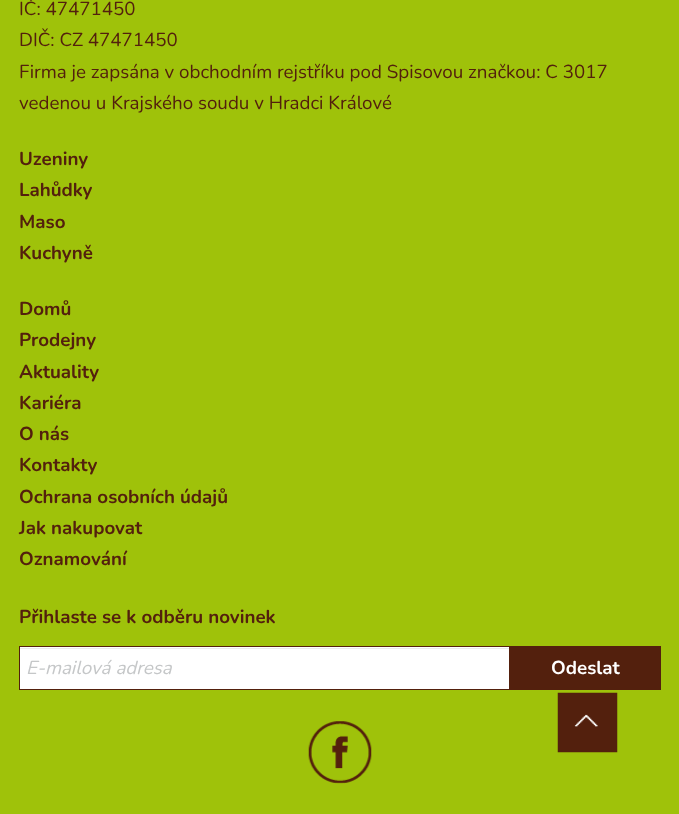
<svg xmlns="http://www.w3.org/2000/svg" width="679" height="814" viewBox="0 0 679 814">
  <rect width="100%" height="100%" fill="rgb(159,194,10)"/>
  <g font-family="Nunito" font-size="18.75" fill="rgb(83,32,13)">
    <text>
      <tspan x="19" y="15">IČ: 47471450</tspan>
      <tspan x="19" y="46">DIČ: CZ 47471450</tspan>
      <tspan x="19" y="78">Firma je zapsána v obchodním rejstříku pod Spisovou značkou: C 3017</tspan>
      <tspan x="19" y="109">vedenou u Krajského soudu v Hradci Králové</tspan>
    </text>
  </g>
  <g font-family="Nunito" font-size="18.75" font-weight="bold" fill="rgb(83,32,13)">
    <text>
      <tspan x="19" y="165">Uzeniny</tspan>
      <tspan x="19" y="196">Lahůdky</tspan>
      <tspan x="19" y="228">Maso</tspan>
      <tspan x="19" y="259">Kuchyně</tspan>
    </text>
    <text>
      <tspan x="19" y="315">Domů</tspan>
      <tspan x="19" y="346">Prodejny</tspan>
      <tspan x="19" y="378">Aktuality</tspan>
      <tspan x="19" y="409">Kariéra</tspan>
      <tspan x="19" y="440">O nás</tspan>
      <tspan x="19" y="471">Kontakty</tspan>
      <tspan x="19" y="503">Ochrana osobních údajů</tspan>
      <tspan x="19" y="534">Jak nakupovat</tspan>
      <tspan x="19" y="565">Oznamování</tspan>
    </text>
    <text x="19" y="623">Přihlaste se k odběru novinek</text>
  </g>
  <rect x="20" y="647" width="489" height="42" fill="rgb(255,255,255)"/>
  <rect x="20" y="648" width="489" height="1" fill="rgb(236,236,236)"/>
  <rect x="19.5" y="646.5" width="490" height="43" fill="none" stroke="rgb(83,32,13)"/>
  <text x="26" y="674" font-family="Nunito" font-size="18.75" font-style="italic" fill="rgb(197,199,200)">E-mailová adresa</text>
  <rect x="510" y="646" width="151" height="44" fill="rgb(83,32,13)"/>
  <text x="551" y="674" font-family="Nunito" font-size="18.75" font-weight="bold" fill="rgb(255,255,255)">Odeslat</text>
  <image x="308" y="721" width="64" height="63" href="pic1.png"/>
  <image x="557" y="692" width="61" height="61" href="pic2.png"/>
</svg>
